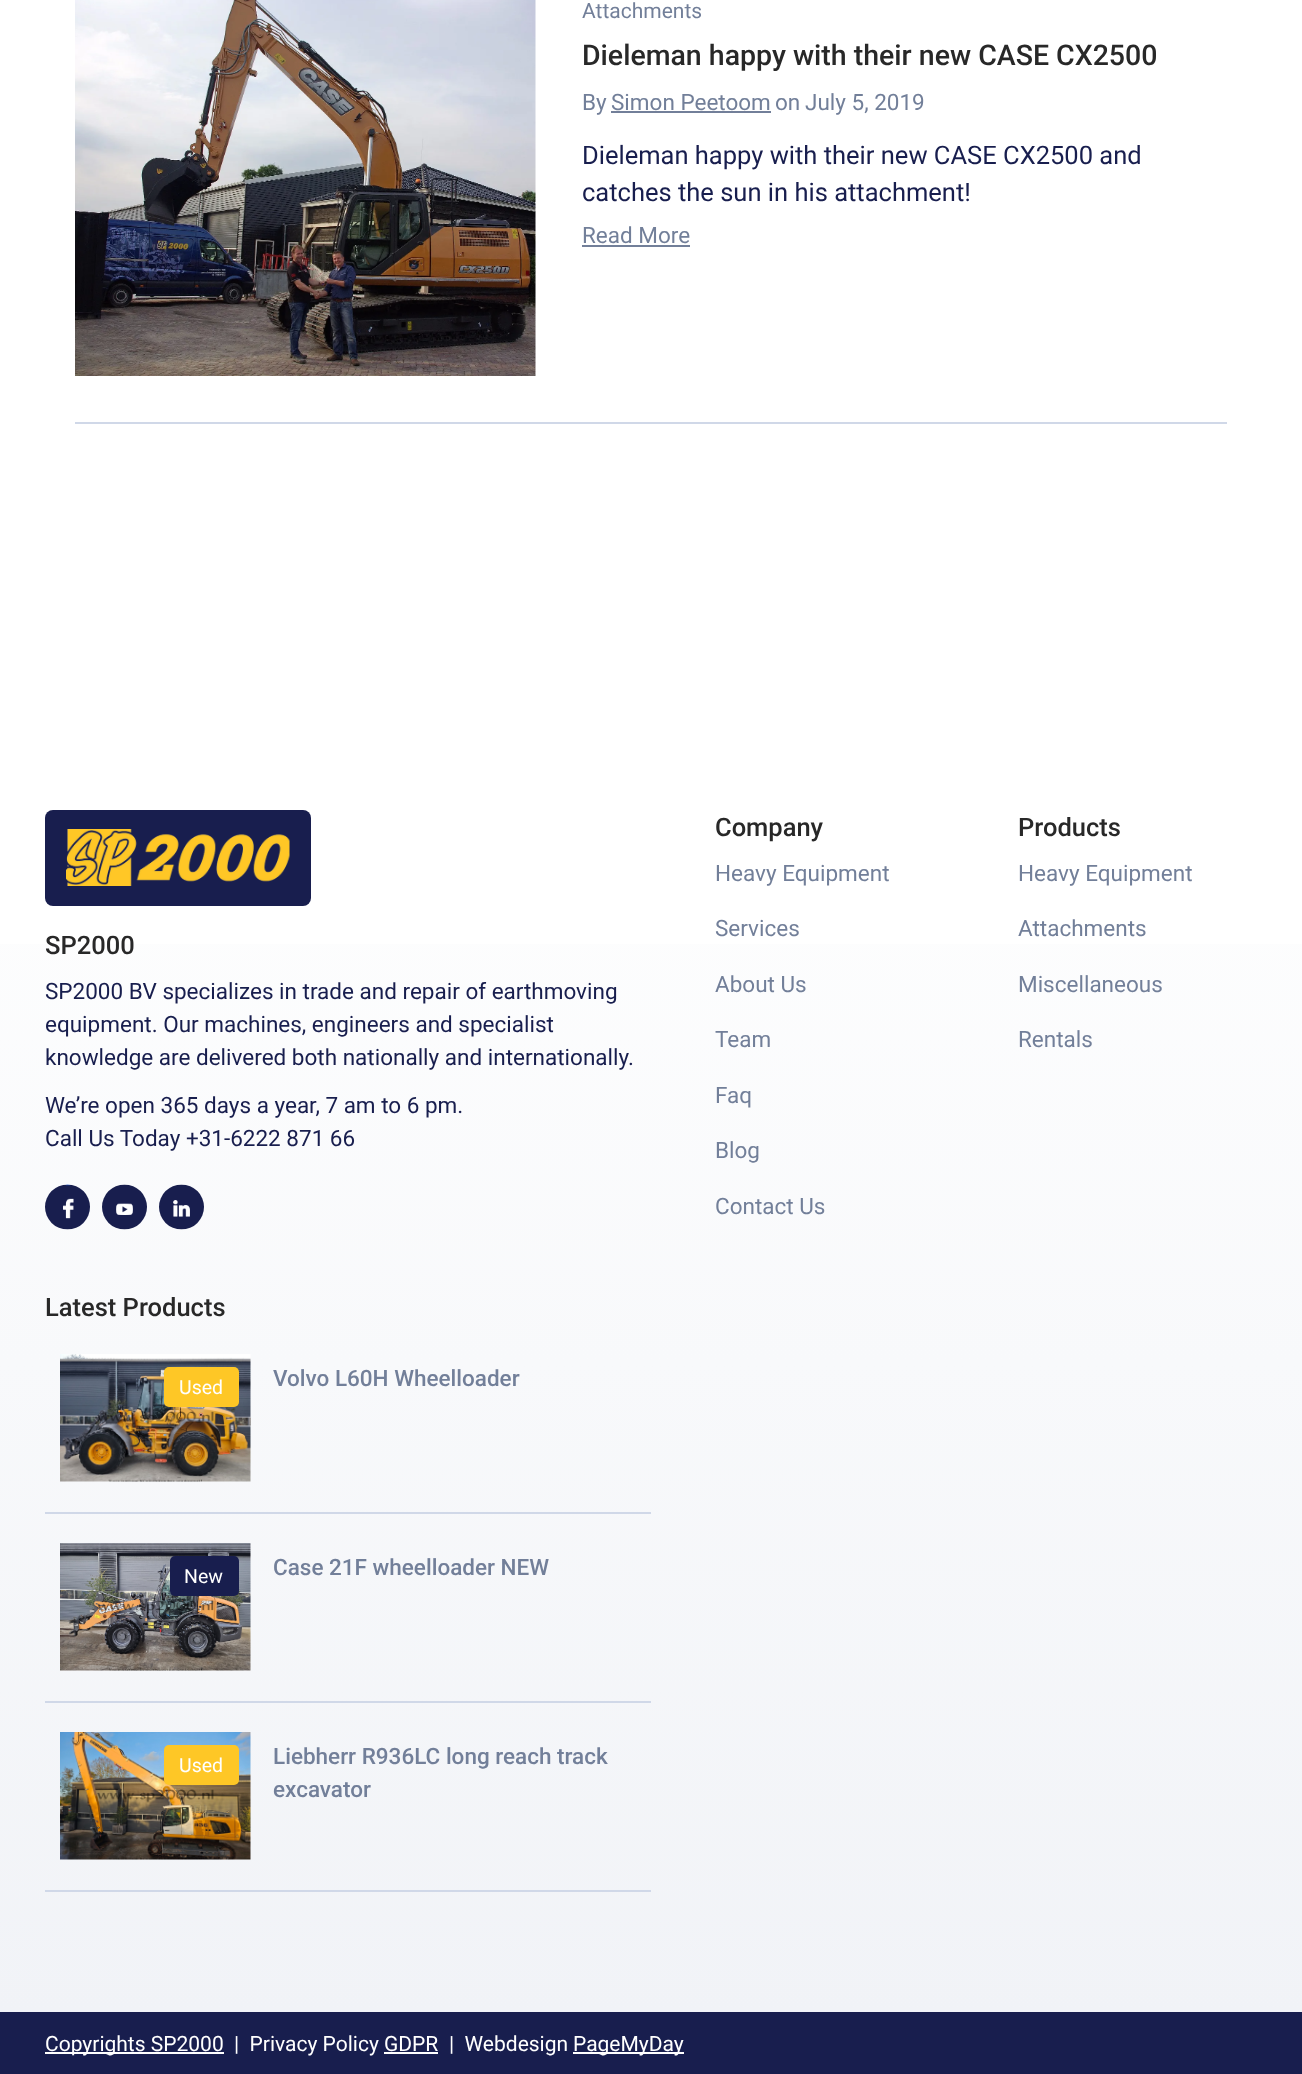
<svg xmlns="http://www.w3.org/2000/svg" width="1302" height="2074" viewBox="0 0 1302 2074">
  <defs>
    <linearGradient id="g1" gradientUnits="userSpaceOnUse" x1="651" y1="712" x2="651" y2="2012"><stop offset="0" stop-color="rgb(255,255,255)"/><stop offset="1" stop-color="rgb(241,243,247)"/><stop offset="1" stop-color="rgb(0,0,0)"/></linearGradient>
  </defs>
  <rect width="100%" height="100%" fill="rgb(255,255,255)"/>
  <rect x="75" y="422" width="1152" height="2" fill="rgb(208,216,232)"/>
  <image x="75" y="0" width="461" height="376" href="pic1.png"/>
  <text x="582" y="18" font-family="Roboto" font-size="21" fill="rgb(114,127,153)">Attachments</text>
  <text x="582" y="65" font-family="Roboto" font-size="28.5" font-weight="500" fill="rgb(40,40,40)">Dieleman happy with their new CASE CX2500</text>
  <g font-family="Roboto" font-size="22.5" fill="rgb(114,127,153)">
    <text x="582" y="110">By</text>
    <text x="611" y="110">Simon Peetoom</text>
  </g>
  <rect x="611" y="111" width="160" height="2" fill="rgb(114,127,153)"/>
  <g font-family="Roboto" font-size="22.5" fill="rgb(114,127,153)">
    <text x="775" y="110">on</text>
    <text x="805" y="110">July 5, 2019</text>
  </g>
  <g font-family="Roboto" font-size="25.5" fill="rgb(24,30,78)">
    <text>
      <tspan x="582" y="164">Dieleman happy with their new CASE CX2500 and</tspan>
      <tspan x="582" y="201">catches the sun in his attachment!</tspan>
    </text>
  </g>
  <text x="582" y="243" font-family="Roboto" font-size="22.5" fill="rgb(114,127,153)">Read More</text>
  <rect x="582" y="245" width="108" height="2" fill="rgb(114,127,153)"/>
  <rect x="0" y="944" width="1302" height="1068" fill="url(#g1)"/>
  <rect x="45" y="810" width="266" height="96" rx="8" fill="rgb(24,30,78)"/>
  <image x="66" y="829" width="224" height="57" href="pic2.png"/>
  <text x="45" y="954" font-family="Roboto" font-size="25.5" font-weight="500" fill="rgb(40,40,40)">SP2000</text>
  <g font-family="Roboto" font-size="22.5" fill="rgb(24,30,78)">
    <text>
      <tspan x="45" y="999">SP2000 BV specializes in trade and repair of earthmoving</tspan>
      <tspan x="45" y="1032">equipment. Our machines, engineers and specialist</tspan>
      <tspan x="45" y="1065">knowledge are delivered both nationally and internationally.</tspan>
    </text>
    <text>
      <tspan x="45" y="1113">We’re open 365 days a year, 7 am to 6 pm.</tspan>
      <tspan x="45" y="1146">Call Us Today +31-6222 871 66</tspan>
    </text>
  </g>
  <image x="45" y="1184" width="45" height="46" href="pic3.png"/>
  <image x="102" y="1184" width="45" height="46" href="pic4.png"/>
  <image x="159" y="1184" width="45" height="46" href="pic5.png"/>
  <text x="715" y="836" font-family="Roboto" font-size="25.5" font-weight="500" fill="rgb(40,40,40)">Company</text>
  <g font-family="Roboto" font-size="22.5" fill="rgb(114,127,153)">
    <text x="715" y="881">Heavy Equipment</text>
    <text x="715" y="936">Services</text>
    <text x="715" y="992">About Us</text>
    <text x="715" y="1047">Team</text>
    <text x="715" y="1103">Faq</text>
    <text x="715" y="1158">Blog</text>
    <text x="715" y="1214">Contact Us</text>
  </g>
  <text x="1018" y="836" font-family="Roboto" font-size="25.5" font-weight="500" fill="rgb(40,40,40)">Products</text>
  <g font-family="Roboto" font-size="22.5" fill="rgb(114,127,153)">
    <text x="1018" y="881">Heavy Equipment</text>
    <text x="1018" y="936">Attachments</text>
    <text x="1018" y="992">Miscellaneous</text>
    <text x="1018" y="1047">Rentals</text>
  </g>
  <text x="45" y="1316" font-family="Roboto" font-size="25.5" font-weight="500" fill="rgb(40,40,40)">Latest Products</text>
  <rect x="45" y="1512" width="606" height="2" fill="rgb(208,216,232)"/>
  <image x="60" y="1354" width="191" height="128" href="pic6.png"/>
  <rect x="164" y="1367" width="75" height="40" rx="5" fill="rgb(254,199,38)"/>
  <text x="179" y="1394" font-family="Roboto" font-size="19.5" fill="rgb(255,255,255)">Used</text>
  <text x="273" y="1386" font-family="Roboto" font-size="22.5" font-weight="500" fill="rgb(114,127,153)">Volvo L60H Wheelloader</text>
  <rect x="45" y="1701" width="606" height="2" fill="rgb(208,216,232)"/>
  <image x="60" y="1543" width="191" height="128" href="pic7.png"/>
  <rect x="170" y="1556" width="69" height="40" rx="5" fill="rgb(24,30,78)"/>
  <text x="184" y="1583" font-family="Roboto" font-size="19.5" fill="rgb(255,255,255)">New</text>
  <text x="273" y="1575" font-family="Roboto" font-size="22.5" font-weight="500" fill="rgb(114,127,153)">Case 21F wheelloader NEW</text>
  <rect x="45" y="1890" width="606" height="2" fill="rgb(208,216,232)"/>
  <image x="60" y="1732" width="191" height="128" href="pic8.png"/>
  <rect x="164" y="1745" width="75" height="40" rx="5" fill="rgb(254,199,38)"/>
  <text x="179" y="1772" font-family="Roboto" font-size="19.5" fill="rgb(255,255,255)">Used</text>
  <g font-family="Roboto" font-size="22.5" font-weight="500" fill="rgb(114,127,153)">
    <text>
      <tspan x="273" y="1764">Liebherr R936LC long reach track</tspan>
      <tspan x="273" y="1797">excavator</tspan>
    </text>
  </g>
  <rect x="0" y="2012" width="1302" height="62" fill="rgb(24,30,78)"/>
  <rect x="45" y="2052" width="179" height="2" fill="rgb(255,255,255)"/>
  <g font-family="Roboto" font-size="21" fill="rgb(255,255,255)">
    <text x="45" y="2051">Copyrights SP2000</text>
    <text x="234" y="2051" xml:space="preserve">|  Privacy Policy GDPR</text>
    <text x="449" y="2051" xml:space="preserve">|  Webdesign</text>
  </g>
  <rect x="573" y="2052" width="111" height="2" fill="rgb(255,255,255)"/>
  <text x="573" y="2051" font-family="Roboto" font-size="21" fill="rgb(255,255,255)">PageMyDay</text>
  <rect x="384" y="2052" width="54" height="2" fill="rgb(255,255,255)"/>
</svg>
